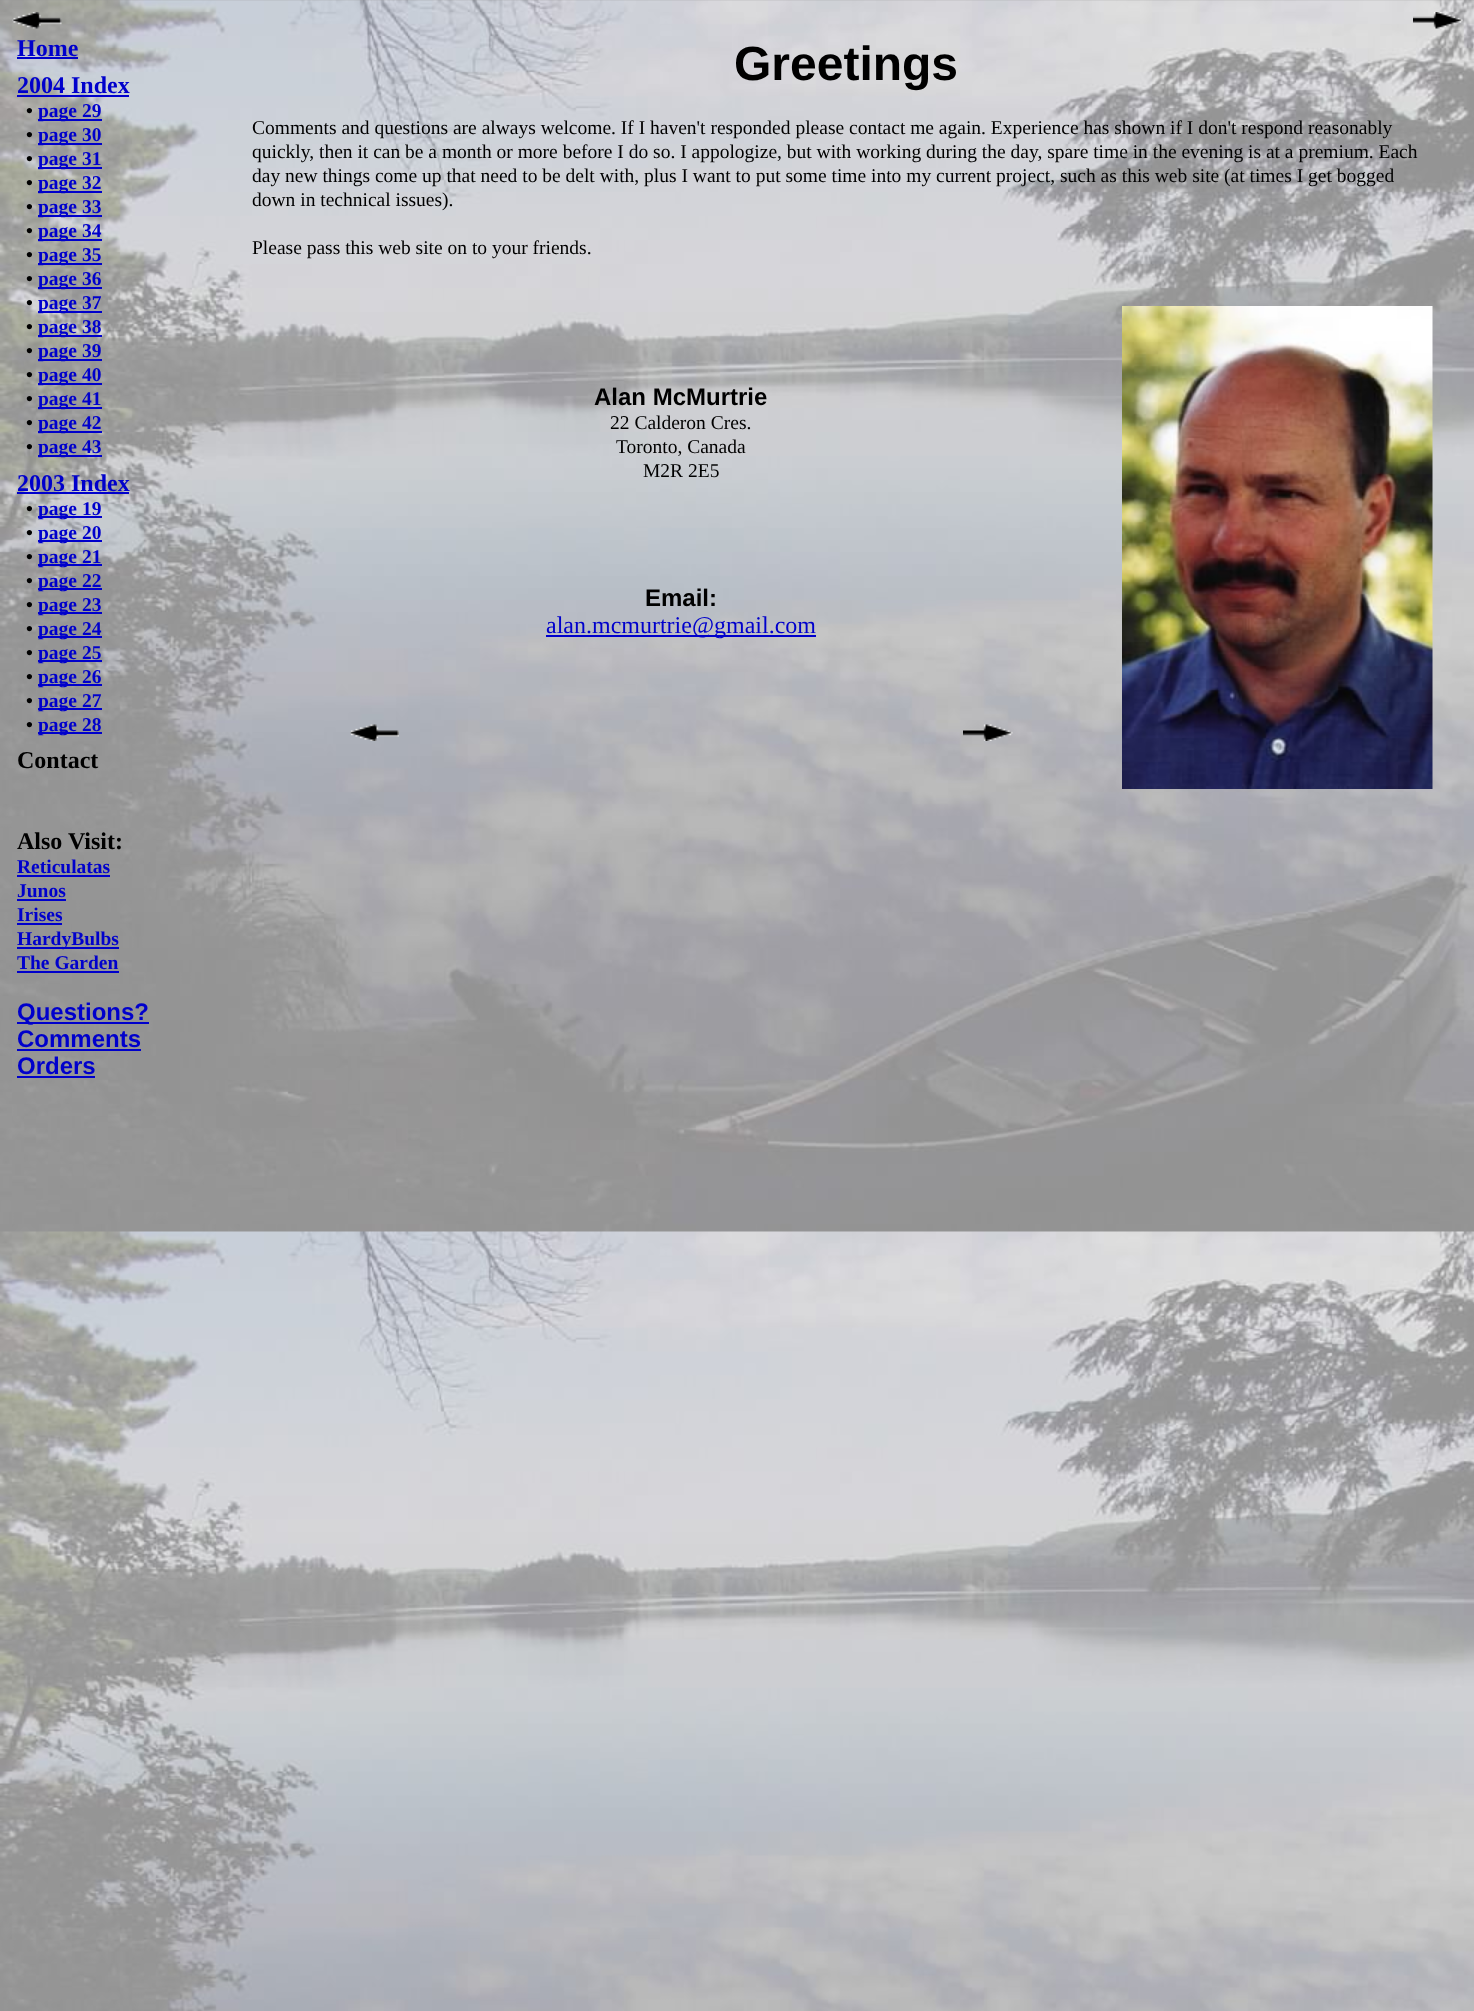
<svg xmlns="http://www.w3.org/2000/svg" width="1474" height="2011" viewBox="0 0 1474 2011">
  <rect width="100%" height="100%" fill="rgb(255,255,255)"/>
  <image x="0" y="0" width="1474" height="2011" href="pic1.png"/>
  <image x="12" y="12" width="50" height="17" href="pic2.png"/>
  <image x="1413" y="12" width="50" height="17" href="pic3.png"/>
  <text x="17" y="56" font-family="Liberation Serif" font-size="24" font-weight="bold" fill="rgb(0,0,204)">Home</text>
  <rect x="17" y="57" width="61" height="2" fill="rgb(0,0,204)"/>
  <text x="17" y="93" font-family="Liberation Serif" font-size="24" font-weight="bold" fill="rgb(0,0,204)">2004 Index</text>
  <rect x="17" y="95" width="112" height="2" fill="rgb(0,0,204)"/>
  <text x="26" y="117" font-family="Liberation Serif" font-size="19.5" font-weight="bold" fill="rgb(0,0,0)">•</text>
  <rect x="38" y="119" width="64" height="2" fill="rgb(0,0,204)"/>
  <text x="38" y="117" font-family="Liberation Serif" font-size="19.5" font-weight="bold" fill="rgb(0,0,204)">page 29</text>
  <text x="26" y="141" font-family="Liberation Serif" font-size="19.5" font-weight="bold" fill="rgb(0,0,0)">•</text>
  <rect x="38" y="143" width="64" height="2" fill="rgb(0,0,204)"/>
  <text x="38" y="141" font-family="Liberation Serif" font-size="19.5" font-weight="bold" fill="rgb(0,0,204)">page 30</text>
  <text x="26" y="165" font-family="Liberation Serif" font-size="19.5" font-weight="bold" fill="rgb(0,0,0)">•</text>
  <rect x="38" y="167" width="64" height="2" fill="rgb(0,0,204)"/>
  <text x="38" y="165" font-family="Liberation Serif" font-size="19.5" font-weight="bold" fill="rgb(0,0,204)">page 31</text>
  <text x="26" y="189" font-family="Liberation Serif" font-size="19.5" font-weight="bold" fill="rgb(0,0,0)">•</text>
  <rect x="38" y="191" width="64" height="2" fill="rgb(0,0,204)"/>
  <text x="38" y="189" font-family="Liberation Serif" font-size="19.5" font-weight="bold" fill="rgb(0,0,204)">page 32</text>
  <text x="26" y="213" font-family="Liberation Serif" font-size="19.5" font-weight="bold" fill="rgb(0,0,0)">•</text>
  <rect x="38" y="215" width="64" height="2" fill="rgb(0,0,204)"/>
  <text x="38" y="213" font-family="Liberation Serif" font-size="19.5" font-weight="bold" fill="rgb(0,0,204)">page 33</text>
  <text x="26" y="237" font-family="Liberation Serif" font-size="19.5" font-weight="bold" fill="rgb(0,0,0)">•</text>
  <rect x="38" y="239" width="64" height="2" fill="rgb(0,0,204)"/>
  <text x="38" y="237" font-family="Liberation Serif" font-size="19.5" font-weight="bold" fill="rgb(0,0,204)">page 34</text>
  <text x="26" y="261" font-family="Liberation Serif" font-size="19.5" font-weight="bold" fill="rgb(0,0,0)">•</text>
  <rect x="38" y="263" width="64" height="2" fill="rgb(0,0,204)"/>
  <text x="38" y="261" font-family="Liberation Serif" font-size="19.5" font-weight="bold" fill="rgb(0,0,204)">page 35</text>
  <text x="26" y="285" font-family="Liberation Serif" font-size="19.5" font-weight="bold" fill="rgb(0,0,0)">•</text>
  <rect x="38" y="287" width="64" height="2" fill="rgb(0,0,204)"/>
  <text x="38" y="285" font-family="Liberation Serif" font-size="19.5" font-weight="bold" fill="rgb(0,0,204)">page 36</text>
  <text x="26" y="309" font-family="Liberation Serif" font-size="19.5" font-weight="bold" fill="rgb(0,0,0)">•</text>
  <rect x="38" y="311" width="64" height="2" fill="rgb(0,0,204)"/>
  <text x="38" y="309" font-family="Liberation Serif" font-size="19.5" font-weight="bold" fill="rgb(0,0,204)">page 37</text>
  <text x="26" y="333" font-family="Liberation Serif" font-size="19.5" font-weight="bold" fill="rgb(0,0,0)">•</text>
  <rect x="38" y="335" width="64" height="2" fill="rgb(0,0,204)"/>
  <text x="38" y="333" font-family="Liberation Serif" font-size="19.5" font-weight="bold" fill="rgb(0,0,204)">page 38</text>
  <text x="26" y="357" font-family="Liberation Serif" font-size="19.5" font-weight="bold" fill="rgb(0,0,0)">•</text>
  <rect x="38" y="359" width="64" height="2" fill="rgb(0,0,204)"/>
  <text x="38" y="357" font-family="Liberation Serif" font-size="19.5" font-weight="bold" fill="rgb(0,0,204)">page 39</text>
  <text x="26" y="381" font-family="Liberation Serif" font-size="19.5" font-weight="bold" fill="rgb(0,0,0)">•</text>
  <rect x="38" y="383" width="64" height="2" fill="rgb(0,0,204)"/>
  <text x="38" y="381" font-family="Liberation Serif" font-size="19.5" font-weight="bold" fill="rgb(0,0,204)">page 40</text>
  <text x="26" y="405" font-family="Liberation Serif" font-size="19.5" font-weight="bold" fill="rgb(0,0,0)">•</text>
  <rect x="38" y="407" width="64" height="2" fill="rgb(0,0,204)"/>
  <text x="38" y="405" font-family="Liberation Serif" font-size="19.5" font-weight="bold" fill="rgb(0,0,204)">page 41</text>
  <text x="26" y="429" font-family="Liberation Serif" font-size="19.5" font-weight="bold" fill="rgb(0,0,0)">•</text>
  <rect x="38" y="431" width="64" height="2" fill="rgb(0,0,204)"/>
  <text x="38" y="429" font-family="Liberation Serif" font-size="19.5" font-weight="bold" fill="rgb(0,0,204)">page 42</text>
  <text x="26" y="453" font-family="Liberation Serif" font-size="19.5" font-weight="bold" fill="rgb(0,0,0)">•</text>
  <rect x="38" y="455" width="64" height="2" fill="rgb(0,0,204)"/>
  <text x="38" y="453" font-family="Liberation Serif" font-size="19.5" font-weight="bold" fill="rgb(0,0,204)">page 43</text>
  <text x="17" y="491" font-family="Liberation Serif" font-size="24" font-weight="bold" fill="rgb(0,0,204)">2003 Index</text>
  <rect x="17" y="492" width="112" height="2" fill="rgb(0,0,204)"/>
  <text x="26" y="515" font-family="Liberation Serif" font-size="19.5" font-weight="bold" fill="rgb(0,0,0)">•</text>
  <rect x="38" y="516" width="64" height="2" fill="rgb(0,0,204)"/>
  <text x="38" y="515" font-family="Liberation Serif" font-size="19.5" font-weight="bold" fill="rgb(0,0,204)">page 19</text>
  <text x="26" y="539" font-family="Liberation Serif" font-size="19.5" font-weight="bold" fill="rgb(0,0,0)">•</text>
  <rect x="38" y="540" width="64" height="2" fill="rgb(0,0,204)"/>
  <text x="38" y="539" font-family="Liberation Serif" font-size="19.5" font-weight="bold" fill="rgb(0,0,204)">page 20</text>
  <text x="26" y="563" font-family="Liberation Serif" font-size="19.5" font-weight="bold" fill="rgb(0,0,0)">•</text>
  <rect x="38" y="564" width="64" height="2" fill="rgb(0,0,204)"/>
  <text x="38" y="563" font-family="Liberation Serif" font-size="19.5" font-weight="bold" fill="rgb(0,0,204)">page 21</text>
  <text x="26" y="587" font-family="Liberation Serif" font-size="19.5" font-weight="bold" fill="rgb(0,0,0)">•</text>
  <rect x="38" y="588" width="64" height="2" fill="rgb(0,0,204)"/>
  <text x="38" y="587" font-family="Liberation Serif" font-size="19.5" font-weight="bold" fill="rgb(0,0,204)">page 22</text>
  <text x="26" y="611" font-family="Liberation Serif" font-size="19.5" font-weight="bold" fill="rgb(0,0,0)">•</text>
  <rect x="38" y="612" width="64" height="2" fill="rgb(0,0,204)"/>
  <text x="38" y="611" font-family="Liberation Serif" font-size="19.5" font-weight="bold" fill="rgb(0,0,204)">page 23</text>
  <text x="26" y="635" font-family="Liberation Serif" font-size="19.5" font-weight="bold" fill="rgb(0,0,0)">•</text>
  <rect x="38" y="636" width="64" height="2" fill="rgb(0,0,204)"/>
  <text x="38" y="635" font-family="Liberation Serif" font-size="19.5" font-weight="bold" fill="rgb(0,0,204)">page 24</text>
  <text x="26" y="659" font-family="Liberation Serif" font-size="19.5" font-weight="bold" fill="rgb(0,0,0)">•</text>
  <rect x="38" y="660" width="64" height="2" fill="rgb(0,0,204)"/>
  <text x="38" y="659" font-family="Liberation Serif" font-size="19.5" font-weight="bold" fill="rgb(0,0,204)">page 25</text>
  <text x="26" y="683" font-family="Liberation Serif" font-size="19.5" font-weight="bold" fill="rgb(0,0,0)">•</text>
  <rect x="38" y="684" width="64" height="2" fill="rgb(0,0,204)"/>
  <text x="38" y="683" font-family="Liberation Serif" font-size="19.5" font-weight="bold" fill="rgb(0,0,204)">page 26</text>
  <text x="26" y="707" font-family="Liberation Serif" font-size="19.5" font-weight="bold" fill="rgb(0,0,0)">•</text>
  <rect x="38" y="708" width="64" height="2" fill="rgb(0,0,204)"/>
  <text x="38" y="707" font-family="Liberation Serif" font-size="19.5" font-weight="bold" fill="rgb(0,0,204)">page 27</text>
  <text x="26" y="731" font-family="Liberation Serif" font-size="19.5" font-weight="bold" fill="rgb(0,0,0)">•</text>
  <rect x="38" y="732" width="64" height="2" fill="rgb(0,0,204)"/>
  <text x="38" y="731" font-family="Liberation Serif" font-size="19.5" font-weight="bold" fill="rgb(0,0,204)">page 28</text>
  <g font-family="Liberation Serif" font-size="24" font-weight="bold" fill="rgb(0,0,0)">
    <text x="17" y="768">Contact</text>
    <text x="17" y="849">Also Visit:</text>
  </g>
  <text x="17" y="873" font-family="Liberation Serif" font-size="19.5" font-weight="bold" fill="rgb(0,0,204)">Reticulatas</text>
  <rect x="17" y="875" width="93" height="2" fill="rgb(0,0,204)"/>
  <text x="17" y="897" font-family="Liberation Serif" font-size="19.5" font-weight="bold" fill="rgb(0,0,204)">Junos</text>
  <rect x="17" y="899" width="49" height="2" fill="rgb(0,0,204)"/>
  <text x="17" y="921" font-family="Liberation Serif" font-size="19.5" font-weight="bold" fill="rgb(0,0,204)">Irises</text>
  <rect x="17" y="923" width="45" height="2" fill="rgb(0,0,204)"/>
  <rect x="17" y="947" width="102" height="2" fill="rgb(0,0,204)"/>
  <g font-family="Liberation Serif" font-size="19.5" font-weight="bold" fill="rgb(0,0,204)">
    <text>
      <tspan x="17" y="945">HardyBulbs</tspan>
      <tspan x="17" y="969">The Garden</tspan>
    </text>
  </g>
  <rect x="17" y="971" width="102" height="2" fill="rgb(0,0,204)"/>
  <rect x="17" y="1022" width="132" height="2" fill="rgb(0,0,204)"/>
  <g font-family="Liberation Sans" font-size="24" font-weight="bold" fill="rgb(0,0,204)">
    <text>
      <tspan x="17" y="1020">Questions?</tspan>
      <tspan x="17" y="1047">Comments</tspan>
    </text>
  </g>
  <rect x="17" y="1049" width="124" height="2" fill="rgb(0,0,204)"/>
  <text x="17" y="1074" font-family="Liberation Sans" font-size="24" font-weight="bold" fill="rgb(0,0,204)">Orders</text>
  <rect x="17" y="1076" width="78" height="2" fill="rgb(0,0,204)"/>
  <text x="734" y="80" font-family="Liberation Sans" font-size="48" font-weight="bold" fill="rgb(0,0,0)">Greetings</text>
  <g font-family="Liberation Serif" font-size="19.5" fill="rgb(0,0,0)">
    <text>
      <tspan x="252" y="134">Comments and questions are always welcome. If I haven't responded please contact me again. Experience has shown if I don't respond reasonably</tspan>
      <tspan x="252" y="158">quickly, then it can be a month or more before I do so. I appologize, but with working during the day, spare time in the evening is at a premium. Each</tspan>
      <tspan x="252" y="182">day new things come up that need to be delt with, plus I want to put some time into my current project, such as this web site (at times I get bogged</tspan>
      <tspan x="252" y="206">down in technical issues).</tspan>
    </text>
    <text x="252" y="254">Please pass this web site on to your friends.</text>
  </g>
  <text x="594" y="405" font-family="Liberation Sans" font-size="24" font-weight="bold" fill="rgb(0,0,0)">Alan McMurtrie</text>
  <g font-family="Liberation Serif" font-size="19.5" fill="rgb(0,0,0)">
    <text x="610" y="429">22 Calderon Cres.</text>
    <text x="616" y="453">Toronto, Canada</text>
    <text x="643" y="477">M2R 2E5</text>
  </g>
  <text x="645" y="606" font-family="Liberation Sans" font-size="24" font-weight="bold" fill="rgb(0,0,0)">Email:</text>
  <rect x="546" y="635" width="270" height="2" fill="rgb(0,0,204)"/>
  <text x="546" y="633" font-family="Liberation Serif" font-size="24" fill="rgb(0,0,204)">alan.mcmurtrie@gmail.com</text>
  <image x="350" y="724" width="49" height="17" href="pic4.png"/>
  <image x="963" y="724" width="50" height="17" href="pic5.png"/>
  <image x="1122" y="306" width="311" height="483" href="pic6.png"/>
</svg>
